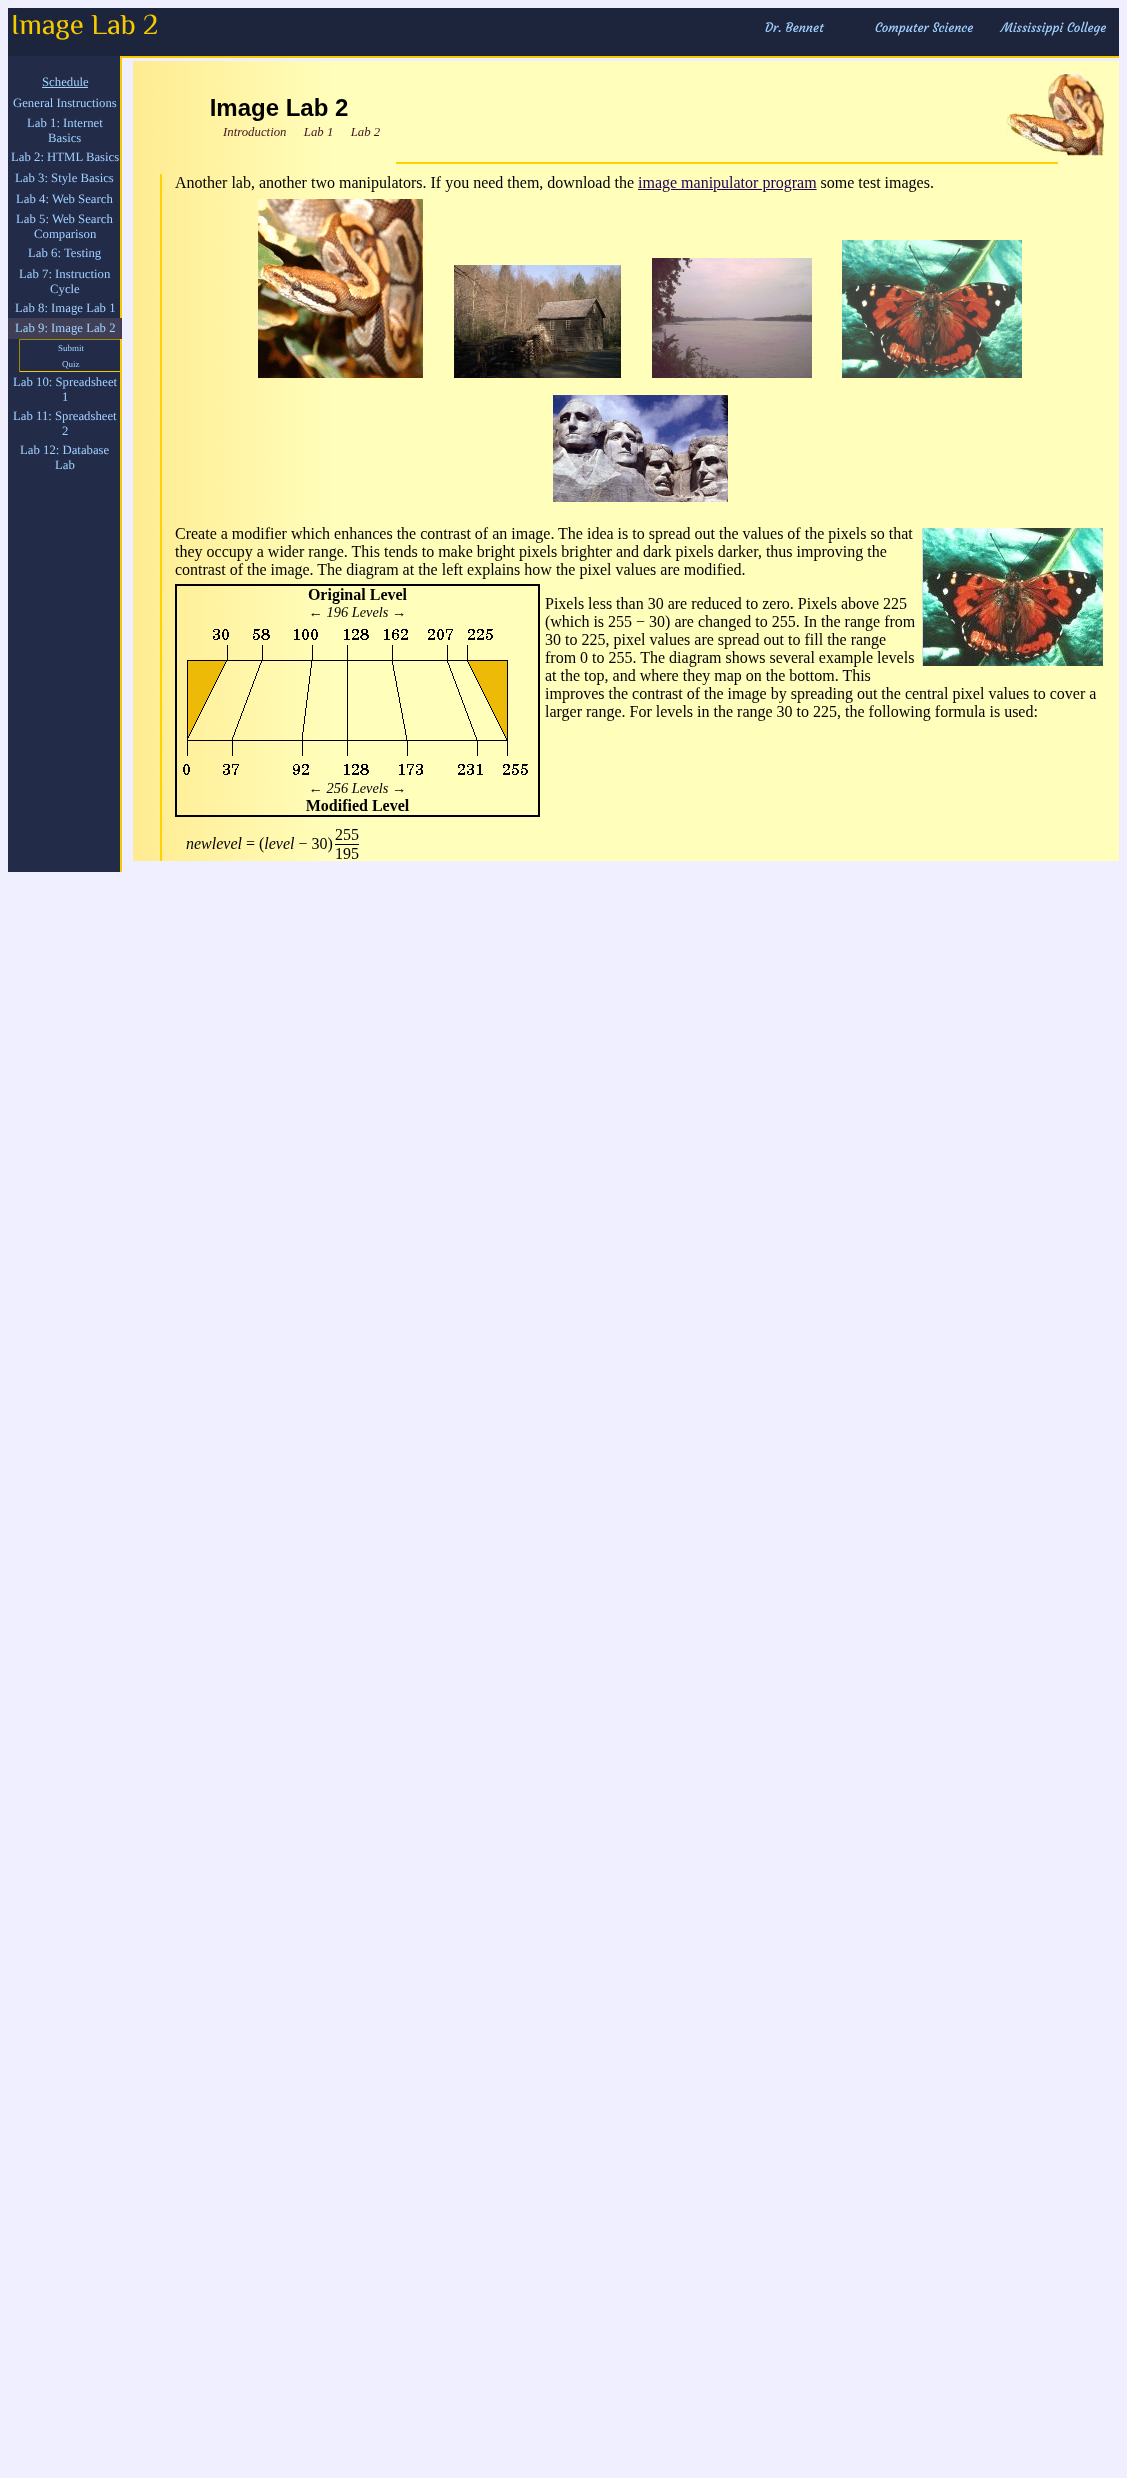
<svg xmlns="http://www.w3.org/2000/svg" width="1127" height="2478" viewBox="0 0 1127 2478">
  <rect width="100%" height="100%" fill="rgb(239,239,255)"/>
  <rect x="8" y="8" width="1111" height="48" fill="rgb(29,37,61)"/>
  <rect x="122" y="56" width="997" height="2" fill="rgb(247,202,0)"/>
  <text x="11" y="34" font-family="Philosopher" font-size="28.75" fill="rgb(247,202,0)">Image Lab 2</text>
  <g font-family="Courgette" font-size="12.75" fill="rgb(160,208,255)">
    <text x="765" y="32">Dr. Bennet</text>
    <text x="875" y="32">Computer Science</text>
    <text x="1001" y="32">Mississippi College</text>
  </g>
  <rect x="8" y="56" width="112" height="816" fill="rgb(34,43,72)"/>
  <rect x="120" y="56" width="2" height="816" fill="rgb(247,202,0)"/>
  <text x="42" y="86" font-family="Liberation Serif" font-size="12.75" fill="rgb(160,208,255)">Schedule</text>
  <rect x="42" y="87" width="46" height="1" fill="rgb(160,208,255)"/>
  <g font-family="Liberation Serif" font-size="12.75" fill="rgb(160,208,255)">
    <text x="13" y="107">General Instructions</text>
    <text x="27" y="127">Lab 1: Internet</text>
    <text x="48" y="142">Basics</text>
    <text x="11" y="161">Lab 2: HTML Basics</text>
    <text x="15" y="182">Lab 3: Style Basics</text>
    <text>
      <tspan x="16" y="203">Lab 4: Web Search</tspan>
      <tspan x="16" y="223">Lab 5: Web Search</tspan>
    </text>
    <text x="34" y="238">Comparison</text>
    <text x="28" y="257">Lab 6: Testing</text>
    <text x="19" y="278">Lab 7: Instruction</text>
    <text x="50" y="293">Cycle</text>
    <text x="15" y="312">Lab 8: Image Lab 1</text>
  </g>
  <rect x="8" y="318" width="114" height="21" fill="rgb(64,63,85)"/>
  <text x="15" y="332" font-family="Liberation Serif" font-size="12.75" fill="rgb(160,208,255)">Lab 9: Image Lab 2</text>
  <rect x="19" y="339" width="101" height="1" fill="rgb(165,135,0)"/>
  <rect x="19" y="371" width="101" height="1" fill="rgb(247,202,0)"/>
  <rect x="19" y="339" width="1" height="33" fill="rgb(165,135,0)"/>
  <g font-family="Liberation Serif" font-size="9" fill="rgb(160,208,255)">
    <text x="58" y="351">Submit</text>
    <text x="62" y="367">Quiz</text>
  </g>
  <g font-family="Liberation Serif" font-size="12.75" fill="rgb(160,208,255)">
    <text x="13" y="386">Lab 10: Spreadsheet</text>
    <text x="62" y="401">1</text>
    <text x="13" y="420">Lab 11: Spreadsheet</text>
    <text x="62" y="435">2</text>
    <text x="20" y="454">Lab 12: Database</text>
    <text x="55" y="469">Lab</text>
  </g>
  <image x="133" y="61" width="986" height="800" href="pic1.png"/>
</svg>
